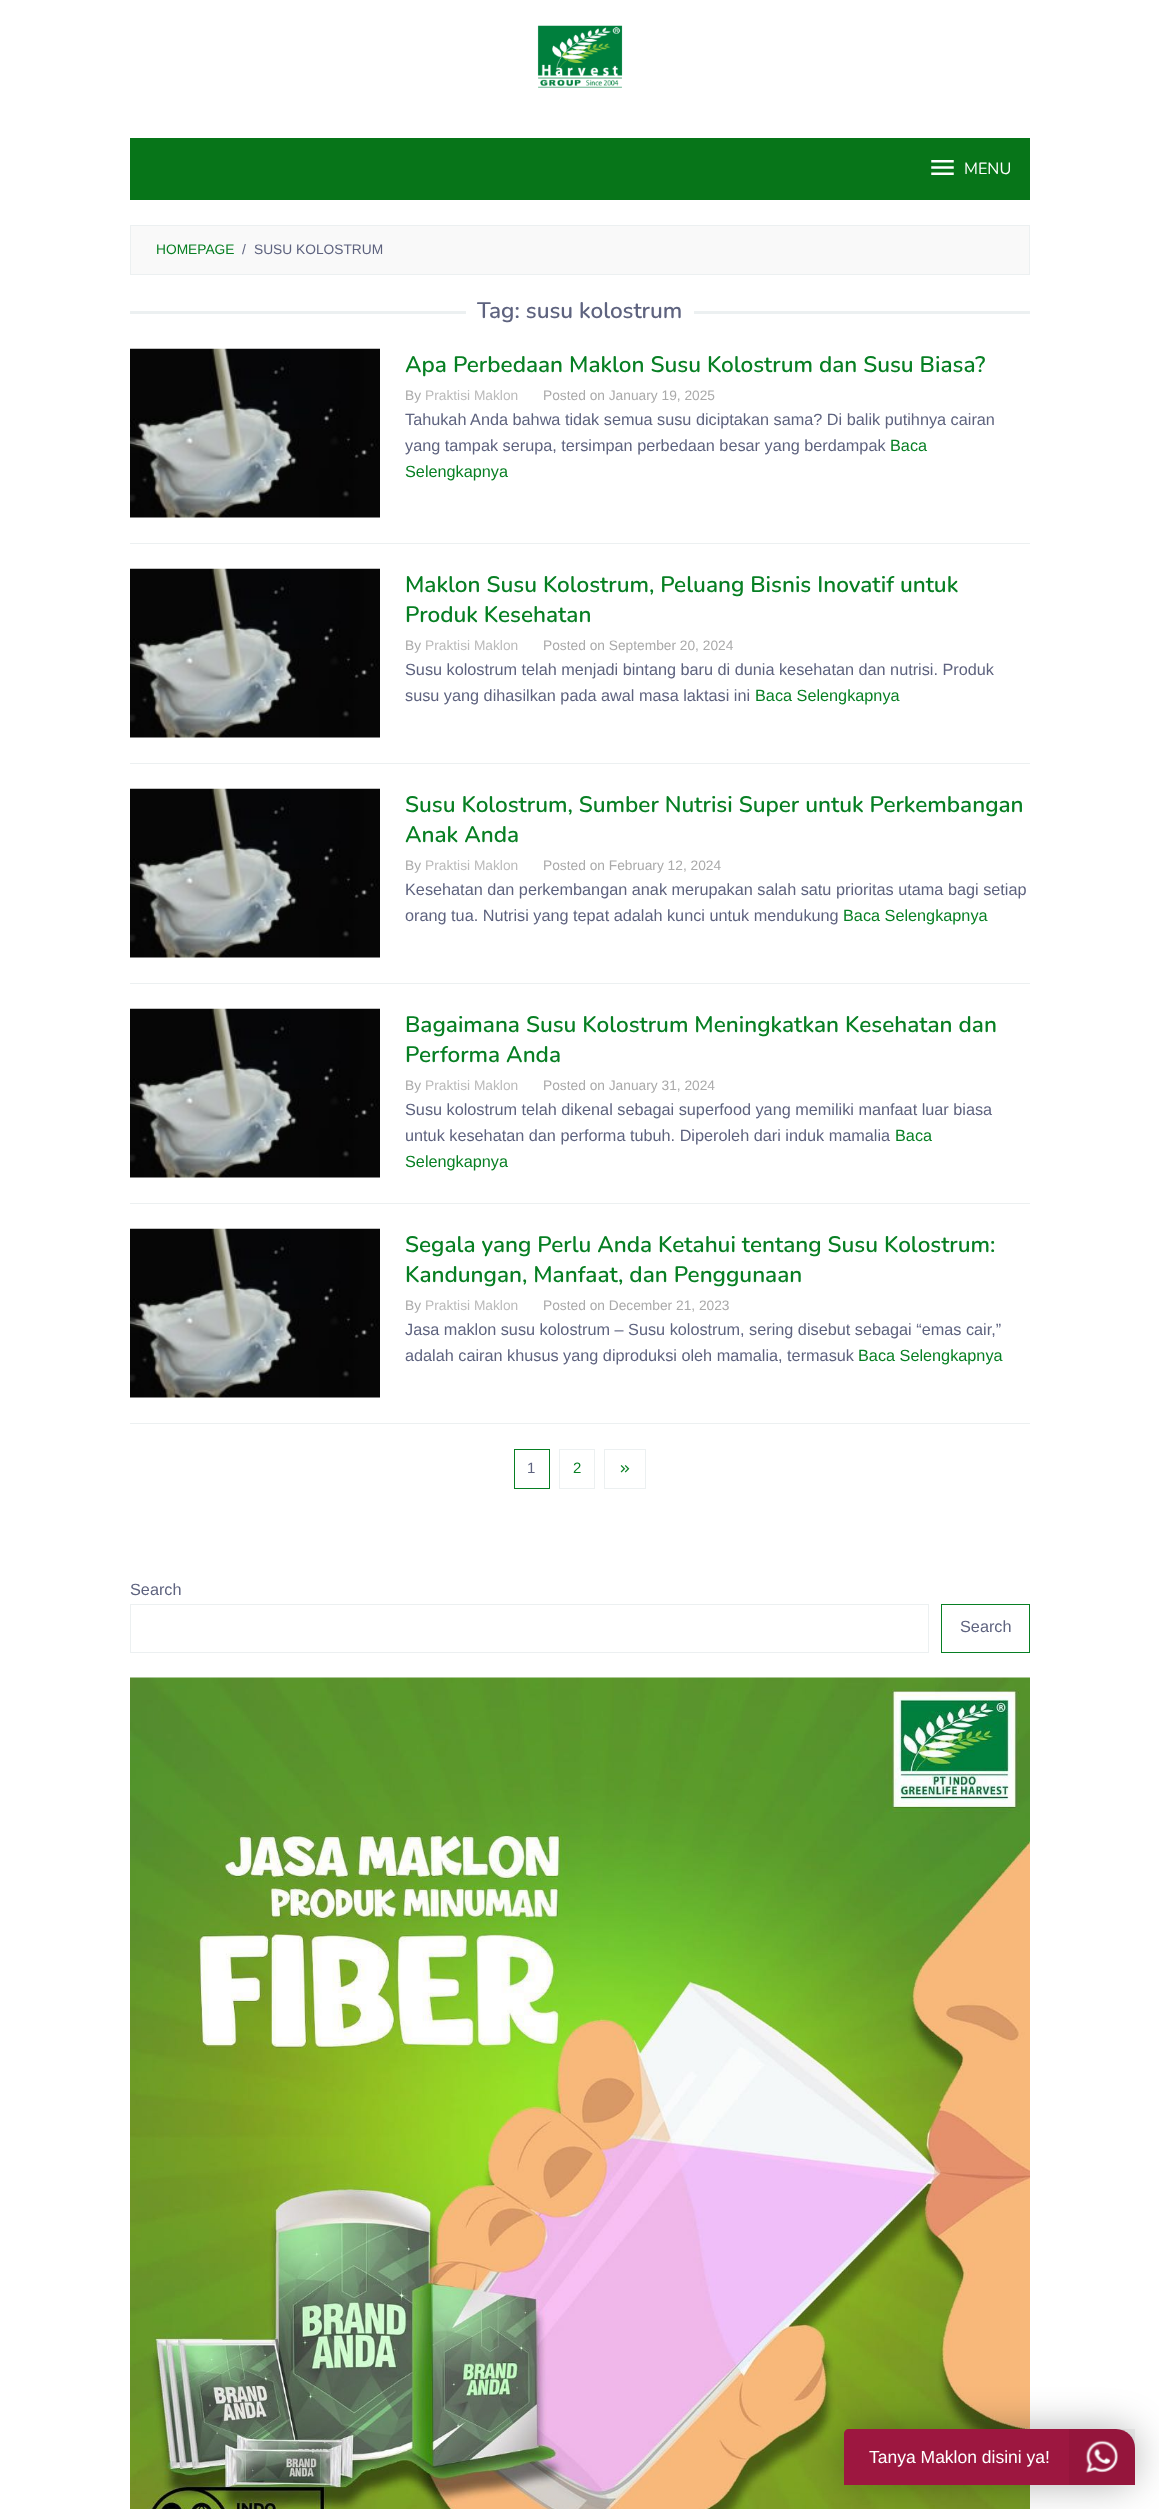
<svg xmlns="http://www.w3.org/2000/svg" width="1159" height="2509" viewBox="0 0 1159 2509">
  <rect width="100%" height="100%" fill="rgb(255,255,255)"/>
  <image x="537" y="25" width="86" height="63" href="pic1.png"/>
  <rect x="130" y="138" width="900" height="62" fill="rgb(7,117,25)"/>
  <image x="931" y="160" width="23" height="15" href="pic2.png"/>
  <text x="964" y="174" font-family="Nunito" font-size="16.25" fill="rgb(255,255,255)">MENU</text>
  <rect x="130.5" y="225.5" width="899" height="49" fill="rgb(249,249,249)" stroke="rgb(236,240,241)"/>
  <text x="156" y="254" font-family="Liberation Sans" font-size="13.75" fill="rgb(7,127,35)">HOMEPAGE</text>
  <g font-family="Liberation Sans" font-size="13.75" fill="rgb(94,99,127)">
    <text x="242" y="254">/</text>
    <text x="254" y="254">SUSU KOLOSTRUM</text>
  </g>
  <rect x="130" y="311" width="336" height="3" fill="rgb(236,240,241)"/>
  <text x="477" y="318" font-family="Nunito" font-size="22.5" font-weight="600" fill="rgb(94,99,127)">Tag: susu kolostrum</text>
  <rect x="694" y="311" width="336" height="3" fill="rgb(236,240,241)"/>
  <rect x="130" y="543" width="900" height="1" fill="rgb(236,240,241)"/>
  <image x="130" y="348" width="250" height="170" href="pic3.png"/>
  <text x="405" y="372" font-family="Nunito" font-size="22.5" font-weight="600" fill="rgb(7,127,35)">Apa Perbedaan Maklon Susu Kolostrum dan Susu Biasa?</text>
  <text x="405" y="400" font-family="Liberation Sans" font-size="13.75" fill="rgb(170,170,170)">By</text>
  <text x="425" y="400" font-family="Liberation Sans" font-size="13.75" fill="rgb(187,187,187)">Praktisi Maklon</text>
  <text x="543" y="400" font-family="Liberation Sans" font-size="13.75" fill="rgb(170,170,170)">Posted on January 19, 2025</text>
  <g font-family="Liberation Sans" font-size="16.25" fill="rgb(94,99,127)">
    <text>
      <tspan x="405" y="425">Tahukah Anda bahwa tidak semua susu diciptakan sama? Di balik putihnya cairan</tspan>
      <tspan x="405" y="451">yang tampak serupa, tersimpan perbedaan besar yang berdampak</tspan>
    </text>
  </g>
  <g font-family="Liberation Sans" font-size="16.25" fill="rgb(7,127,35)">
    <text x="890" y="451">Baca</text>
    <text x="405" y="477">Selengkapnya</text>
  </g>
  <rect x="130" y="763" width="900" height="1" fill="rgb(236,240,241)"/>
  <image x="130" y="568" width="250" height="170" href="pic4.png"/>
  <g font-family="Nunito" font-size="22.5" font-weight="600" fill="rgb(7,127,35)">
    <text>
      <tspan x="405" y="592">Maklon Susu Kolostrum, Peluang Bisnis Inovatif untuk</tspan>
      <tspan x="405" y="622">Produk Kesehatan</tspan>
    </text>
  </g>
  <text x="405" y="650" font-family="Liberation Sans" font-size="13.75" fill="rgb(170,170,170)">By</text>
  <text x="425" y="650" font-family="Liberation Sans" font-size="13.75" fill="rgb(187,187,187)">Praktisi Maklon</text>
  <text x="543" y="650" font-family="Liberation Sans" font-size="13.75" fill="rgb(170,170,170)">Posted on September 20, 2024</text>
  <g font-family="Liberation Sans" font-size="16.25" fill="rgb(94,99,127)">
    <text>
      <tspan x="405" y="675">Susu kolostrum telah menjadi bintang baru di dunia kesehatan dan nutrisi. Produk</tspan>
      <tspan x="405" y="701">susu yang dihasilkan pada awal masa laktasi ini</tspan>
    </text>
  </g>
  <text x="755" y="701" font-family="Liberation Sans" font-size="16.25" fill="rgb(7,127,35)">Baca Selengkapnya</text>
  <rect x="130" y="983" width="900" height="1" fill="rgb(236,240,241)"/>
  <image x="130" y="788" width="250" height="170" href="pic3.png"/>
  <g font-family="Nunito" font-size="22.5" font-weight="600" fill="rgb(7,127,35)">
    <text>
      <tspan x="405" y="812">Susu Kolostrum, Sumber Nutrisi Super untuk Perkembangan</tspan>
      <tspan x="405" y="842">Anak Anda</tspan>
    </text>
  </g>
  <text x="405" y="870" font-family="Liberation Sans" font-size="13.75" fill="rgb(170,170,170)">By</text>
  <text x="425" y="870" font-family="Liberation Sans" font-size="13.75" fill="rgb(187,187,187)">Praktisi Maklon</text>
  <text x="543" y="870" font-family="Liberation Sans" font-size="13.75" fill="rgb(170,170,170)">Posted on February 12, 2024</text>
  <g font-family="Liberation Sans" font-size="16.25" fill="rgb(94,99,127)">
    <text>
      <tspan x="405" y="895">Kesehatan dan perkembangan anak merupakan salah satu prioritas utama bagi setiap</tspan>
      <tspan x="405" y="921">orang tua. Nutrisi yang tepat adalah kunci untuk mendukung</tspan>
    </text>
  </g>
  <text x="843" y="921" font-family="Liberation Sans" font-size="16.25" fill="rgb(7,127,35)">Baca Selengkapnya</text>
  <rect x="130" y="1203" width="900" height="1" fill="rgb(236,240,241)"/>
  <image x="130" y="1008" width="250" height="170" href="pic3.png"/>
  <g font-family="Nunito" font-size="22.5" font-weight="600" fill="rgb(7,127,35)">
    <text>
      <tspan x="405" y="1032">Bagaimana Susu Kolostrum Meningkatkan Kesehatan dan</tspan>
      <tspan x="405" y="1062">Performa Anda</tspan>
    </text>
  </g>
  <text x="405" y="1090" font-family="Liberation Sans" font-size="13.75" fill="rgb(170,170,170)">By</text>
  <text x="425" y="1090" font-family="Liberation Sans" font-size="13.75" fill="rgb(187,187,187)">Praktisi Maklon</text>
  <text x="543" y="1090" font-family="Liberation Sans" font-size="13.75" fill="rgb(170,170,170)">Posted on January 31, 2024</text>
  <g font-family="Liberation Sans" font-size="16.25" fill="rgb(94,99,127)">
    <text>
      <tspan x="405" y="1115">Susu kolostrum telah dikenal sebagai superfood yang memiliki manfaat luar biasa</tspan>
      <tspan x="405" y="1141">untuk kesehatan dan performa tubuh. Diperoleh dari induk mamalia</tspan>
    </text>
  </g>
  <g font-family="Liberation Sans" font-size="16.25" fill="rgb(7,127,35)">
    <text x="895" y="1141">Baca</text>
    <text x="405" y="1167">Selengkapnya</text>
  </g>
  <rect x="130" y="1423" width="900" height="1" fill="rgb(236,240,241)"/>
  <image x="130" y="1228" width="250" height="170" href="pic3.png"/>
  <g font-family="Nunito" font-size="22.5" font-weight="600" fill="rgb(7,127,35)">
    <text>
      <tspan x="405" y="1252">Segala yang Perlu Anda Ketahui tentang Susu Kolostrum:</tspan>
      <tspan x="405" y="1282">Kandungan, Manfaat, dan Penggunaan</tspan>
    </text>
  </g>
  <text x="405" y="1310" font-family="Liberation Sans" font-size="13.75" fill="rgb(170,170,170)">By</text>
  <text x="425" y="1310" font-family="Liberation Sans" font-size="13.75" fill="rgb(187,187,187)">Praktisi Maklon</text>
  <text x="543" y="1310" font-family="Liberation Sans" font-size="13.75" fill="rgb(170,170,170)">Posted on December 21, 2023</text>
  <g font-family="Liberation Sans" font-size="16.25" fill="rgb(94,99,127)">
    <text>
      <tspan x="405" y="1335">Jasa maklon susu kolostrum – Susu kolostrum, sering disebut sebagai “emas cair,”</tspan>
      <tspan x="405" y="1361">adalah cairan khusus yang diproduksi oleh mamalia, termasuk</tspan>
    </text>
  </g>
  <text x="858" y="1361" font-family="Liberation Sans" font-size="16.25" fill="rgb(7,127,35)">Baca Selengkapnya</text>
  <rect x="514.5" y="1449.5" width="35" height="39" fill="none" stroke="rgb(7,127,35)"/>
  <text x="527" y="1473" font-family="Liberation Sans" font-size="15" fill="rgb(94,99,127)">1</text>
  <rect x="559.5" y="1449.5" width="35" height="39" fill="none" stroke="rgb(236,240,241)"/>
  <text x="573" y="1473" font-family="Liberation Sans" font-size="15" fill="rgb(7,127,35)">2</text>
  <rect x="604.5" y="1449.5" width="41" height="39" fill="none" stroke="rgb(236,240,241)"/>
  <image x="620" y="1465" width="10" height="8" href="pic5.png"/>
  <text x="130" y="1595" font-family="Liberation Sans" font-size="16.25" fill="rgb(94,99,127)">Search</text>
  <rect x="130.5" y="1604.5" width="798" height="48" fill="none" stroke="rgb(236,240,241)"/>
  <rect x="941.5" y="1604.5" width="88" height="48" fill="none" stroke="rgb(7,127,35)"/>
  <text x="960" y="1632" font-family="Liberation Sans" font-size="16.25" fill="rgb(94,99,127)">Search</text>
  <image x="130" y="1677" width="900" height="832" href="pic6.png"/>
  <rect x="844" y="2429" width="291" height="56" rx="19" fill="rgba(0,0,0,0.3)" filter="blur(19px)"/>
  <path d="M849 2429H1116C1126.5 2429 1135 2437.5 1135 2448V2485H844V2434C844 2431 846 2429 849 2429Z" fill="rgb(157,23,64)"/>
  <text x="869" y="2463" font-family="Liberation Sans" font-size="17.5" fill="rgb(255,255,255)">Tanya Maklon disini ya!</text>
  <rect x="1069" y="2429" width="66" height="56" fill="rgba(0,0,0,0.05)"/>
  <image x="1085" y="2440" width="33" height="33" href="pic7.png"/>
</svg>
